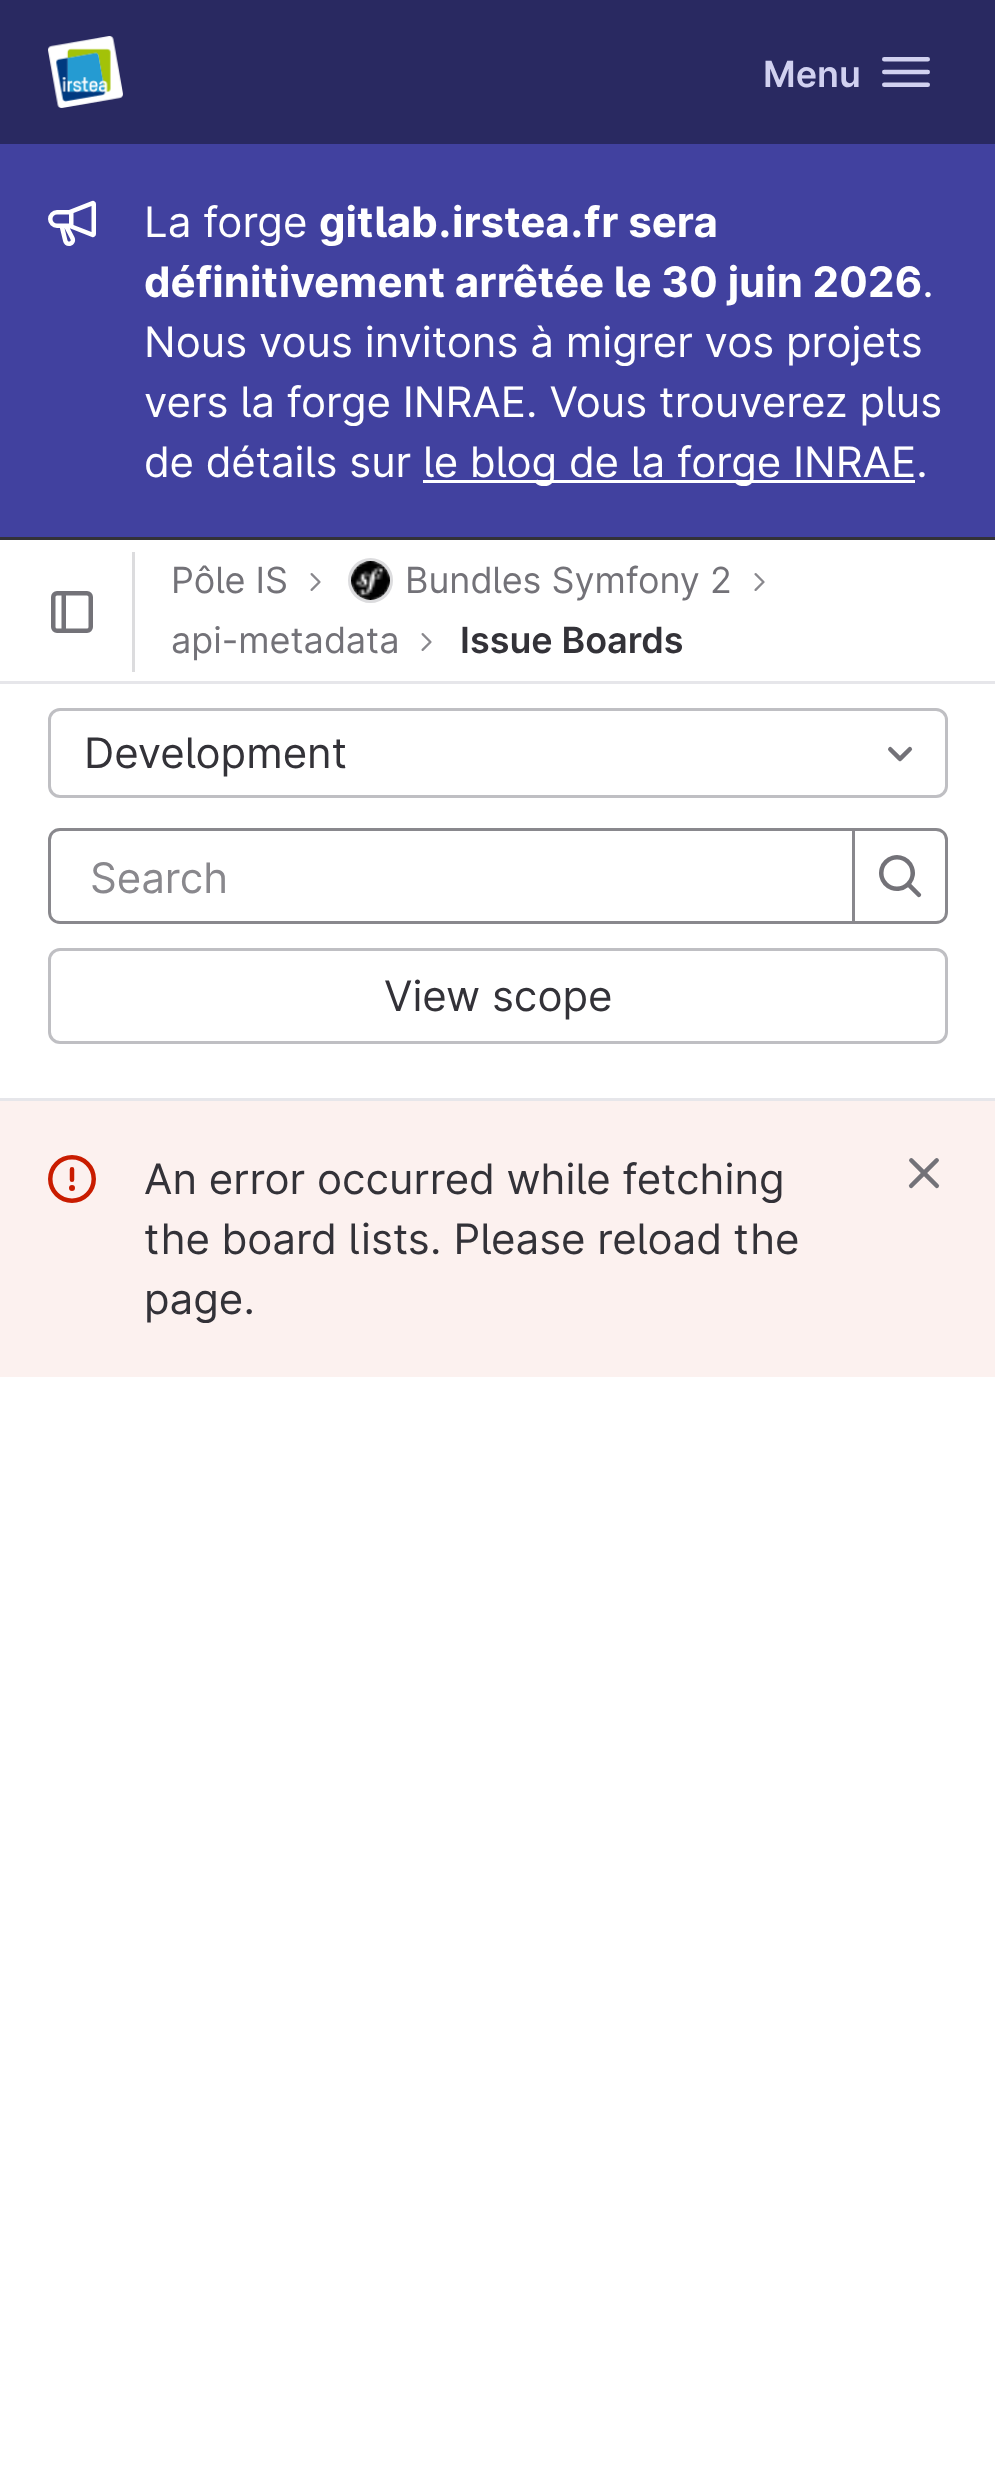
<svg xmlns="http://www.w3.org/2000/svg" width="995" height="2476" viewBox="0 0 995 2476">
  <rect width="100%" height="100%" fill="rgb(255,255,255)"/>
  <rect x="0" y="0" width="995" height="144" fill="rgb(41,41,97)"/>
  <image x="48" y="36" width="75" height="72" href="pic1.png"/>
  <text x="763" y="87" font-family="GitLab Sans" font-size="36" font-weight="600" fill="rgb(209,209,240)">Menu</text>
  <image x="882" y="57" width="48" height="30" href="pic2.png"/>
  <rect x="0" y="144" width="995" height="393" fill="rgb(65,65,159)"/>
  <rect x="0" y="537" width="995" height="3" fill="rgb(51,50,56)"/>
  <image x="48" y="200" width="48" height="46" href="pic3.png"/>
  <text x="144" y="237" font-family="GitLab Sans" font-size="42" fill="rgb(255,255,255)">La forge</text>
  <g font-family="GitLab Sans" font-size="42" font-weight="bold" fill="rgb(255,255,255)">
    <text x="319" y="237">gitlab.irstea.fr sera</text>
    <text x="144" y="297">définitivement arrêtée le 30 juin 2026</text>
  </g>
  <g font-family="GitLab Sans" font-size="42" fill="rgb(255,255,255)">
    <text x="922" y="297">.</text>
    <text>
      <tspan x="144" y="357">Nous vous invitons à migrer vos projets</tspan>
      <tspan x="144" y="417">vers la forge INRAE. Vous trouverez plus</tspan>
      <tspan x="144" y="477">de détails sur</tspan>
    </text>
  </g>
  <rect x="423" y="480" width="492" height="3" fill="rgb(255,255,255)"/>
  <text x="423" y="477" font-family="GitLab Sans" font-size="42" fill="rgb(255,255,255)">le blog de la forge INRAE.</text>
  <image x="51" y="591" width="42" height="42" href="pic4.png"/>
  <rect x="132" y="552" width="3" height="120" fill="rgb(220,220,222)"/>
  <text x="171" y="593" font-family="GitLab Sans" font-size="36" fill="rgb(115,114,120)">Pôle IS</text>
  <image x="310" y="573" width="11" height="18" href="pic5.png"/>
  <circle cx="370.5" cy="580.5" r="21" fill="none" stroke="rgb(220,220,222)" stroke-width="3"/>
  <image x="351" y="561" width="39" height="39" href="pic6.png"/>
  <text x="405" y="593" font-family="GitLab Sans" font-size="36" fill="rgb(115,114,120)">Bundles Symfony 2</text>
  <image x="754" y="573" width="11" height="18" href="pic7.png"/>
  <text x="171" y="653" font-family="GitLab Sans" font-size="36" fill="rgb(115,114,120)">api-metadata</text>
  <image x="421" y="633" width="11" height="18" href="pic5.png"/>
  <text x="460" y="653" font-family="GitLab Sans" font-size="36" font-weight="600" fill="rgb(51,50,56)">Issue Boards</text>
  <rect x="0" y="681" width="995" height="3" fill="rgb(230,230,234)"/>
  <rect x="0" y="1098" width="995" height="3" fill="rgb(230,230,234)"/>
  <rect x="49.5" y="709.5" width="897" height="87" rx="10.5" fill="none" stroke="rgb(191,191,195)" stroke-width="3"/>
  <text x="84" y="768" font-family="GitLab Sans" font-size="42" fill="rgb(51,50,56)">Development</text>
  <image x="888" y="746" width="25" height="16" href="pic8.png"/>
  <path d="M60 829.5H853.5V922.5H60C54 922.5 49.5 918 49.5 912V840C49.5 834 54 829.5 60 829.5Z" fill="none" stroke="rgb(137,136,141)" stroke-width="3"/>
  <text x="90" y="893" font-family="GitLab Sans" font-size="42" fill="rgb(137,136,141)">Search</text>
  <path d="M853.5 829.5H936C942 829.5 946.5 834 946.5 840V912C946.5 918 942 922.5 936 922.5H853.5Z" fill="rgb(255,255,255)" stroke="rgb(137,136,141)" stroke-width="3"/>
  <image x="879" y="855" width="43" height="43" href="pic9.png"/>
  <rect x="49.5" y="949.5" width="897" height="93" rx="10.5" fill="none" stroke="rgb(191,191,195)" stroke-width="3"/>
  <text x="384" y="1011" font-family="GitLab Sans" font-size="42" fill="rgb(51,50,56)">View scope</text>
  <rect x="0" y="1101" width="995" height="276" fill="rgb(252,241,239)"/>
  <image x="48" y="1155" width="48" height="48" href="pic10.png"/>
  <g font-family="GitLab Sans" font-size="42" fill="rgb(51,50,56)">
    <text>
      <tspan x="144" y="1194">An error occurred while fetching</tspan>
      <tspan x="144" y="1254">the board lists. Please reload the</tspan>
      <tspan x="144" y="1314">page.</tspan>
    </text>
  </g>
  <image x="908" y="1158" width="32" height="31" href="pic11.png"/>
</svg>
